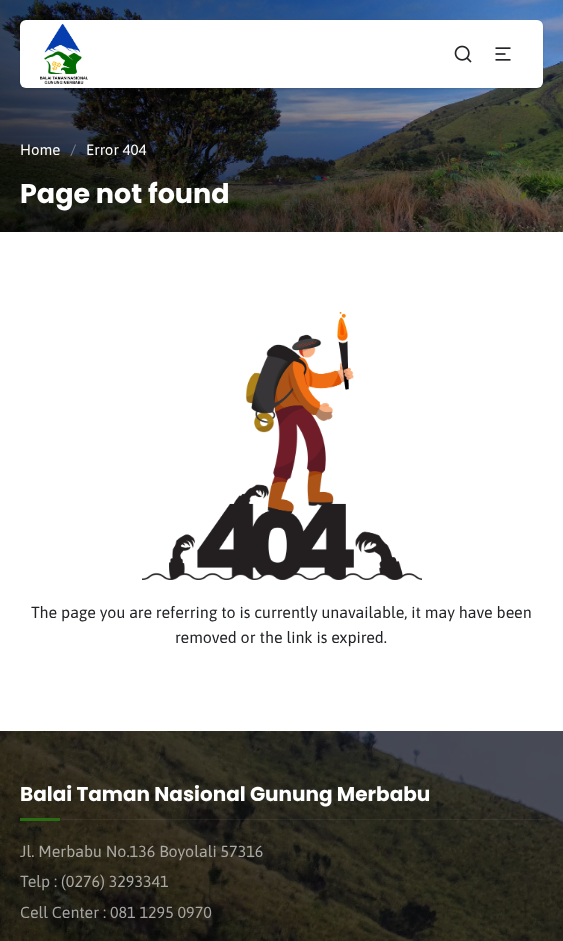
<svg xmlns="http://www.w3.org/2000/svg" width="563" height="941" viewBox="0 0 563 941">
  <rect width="100%" height="100%" fill="rgb(255,255,255)"/>
  <image x="0" y="0" width="563" height="232" href="pic4.png"/>
  <rect x="20" y="21" width="523" height="68" rx="6" fill="rgba(0,0,0,0.12)" filter="blur(1px)"/>
  <rect x="20" y="20" width="523" height="68" rx="6" fill="rgb(255,255,255)"/>
  <image x="40" y="24" width="48" height="60" href="pic1.png"/>
  <image x="454" y="45" width="18" height="18" href="pic2.png"/>
  <image x="495" y="47" width="16" height="14" href="pic3.png"/>
  <text x="20" y="155" font-family="Asap" font-size="15" fill="rgb(255,255,255)">Home</text>
  <text x="70" y="155" font-family="Asap" font-size="15" fill="rgb(126,131,141)">/</text>
  <text x="86" y="155" font-family="Asap" font-size="15" fill="rgb(255,255,255)">Error 404</text>
  <text x="20" y="203" font-family="Poppins" font-size="27" font-weight="bold" fill="rgb(255,255,255)">Page not found</text>
  <image x="142" y="312" width="280" height="268" href="pic5.png"/>
  <g font-family="Asap" font-size="16" fill="rgb(35,36,40)">
    <text x="31" y="618">The page you are referring to is currently unavailable, it may have been</text>
    <text x="175" y="643">removed or the link is expired.</text>
  </g>
  <image x="0" y="731" width="563" height="210" href="pic6.png"/>
  <rect x="60" y="819" width="483" height="1" fill="rgba(255,255,255,0.06)"/>
  <text x="20" y="801" font-family="Poppins" font-size="20" font-weight="bold" fill="rgb(255,255,255)">Balai Taman Nasional Gunung Merbabu</text>
  <rect x="20" y="818" width="40" height="3" fill="rgb(42,108,18)"/>
  <text x="20" y="857" font-family="Asap" font-size="16" fill="rgb(171,169,164)">Jl. Merbabu No.136 Boyolali 57316</text>
  <text x="20" y="887" font-family="Asap" font-size="16" fill="rgb(165,164,161)">Telp</text>
  <text x="54" y="887" font-family="Asap" font-size="16" fill="rgb(171,169,164)">: (0276) 3293341</text>
  <text x="20" y="918" font-family="Asap" font-size="16" fill="rgb(165,164,161)">Cell Center : 081 1295 0970</text>
</svg>
